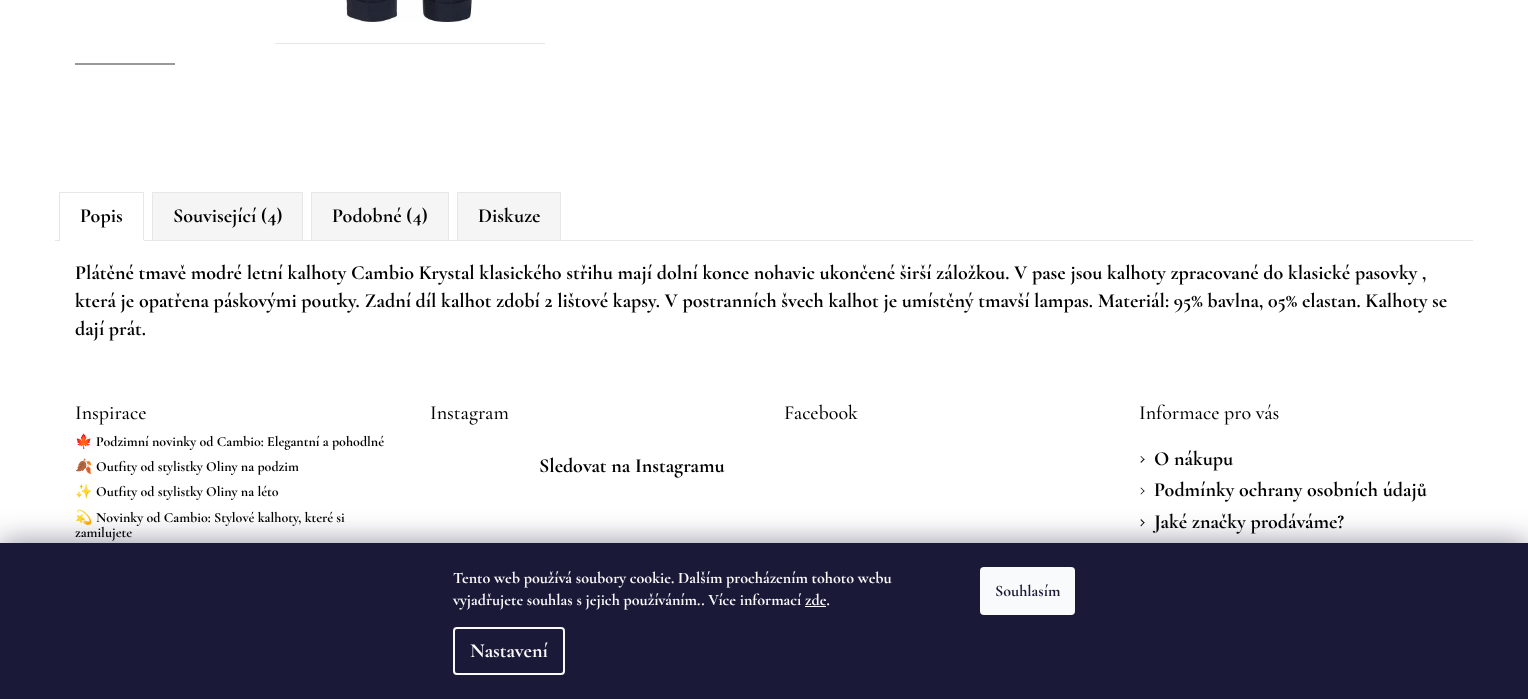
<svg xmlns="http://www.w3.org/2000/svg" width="1528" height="699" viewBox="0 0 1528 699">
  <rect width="100%" height="100%" fill="rgb(255,255,255)"/>
  <image x="344" y="0" width="128" height="22" href="pic1.png"/>
  <rect x="275" y="43" width="270" height="1" fill="rgb(230,230,230)"/>
  <rect x="75" y="63" width="100" height="2" fill="rgb(153,153,153)"/>
  <rect x="55" y="240" width="1418" height="1" fill="rgb(231,231,231)"/>
  <rect x="59" y="192" width="85" height="1" fill="rgb(231,231,231)"/>
  <rect x="143" y="192" width="1" height="49" fill="rgb(231,231,231)"/>
  <rect x="59" y="240" width="85" height="1" fill="rgb(255,255,255)"/>
  <rect x="59" y="192" width="1" height="49" fill="rgb(231,231,231)"/>
  <text x="80" y="222" font-family="Cormorant Garamond" font-size="20" font-weight="bold" fill="rgb(0,0,0)">Popis</text>
  <rect x="152.5" y="192.5" width="150" height="48" fill="rgb(245,245,245)" stroke="rgb(231,231,231)"/>
  <text x="173" y="222" font-family="Cormorant Garamond" font-size="20" font-weight="bold" fill="rgb(0,0,0)">Související (4)</text>
  <rect x="311.5" y="192.5" width="137" height="48" fill="rgb(245,245,245)" stroke="rgb(231,231,231)"/>
  <text x="332" y="222" font-family="Cormorant Garamond" font-size="20" font-weight="bold" fill="rgb(0,0,0)">Podobné (4)</text>
  <rect x="457.5" y="192.5" width="103" height="48" fill="rgb(245,245,245)" stroke="rgb(231,231,231)"/>
  <g font-family="Cormorant Garamond" font-size="20" font-weight="bold" fill="rgb(0,0,0)">
    <text x="478" y="222">Diskuze</text>
    <text>
      <tspan x="75" y="279">Plátěné tmavě modré letní kalhoty Cambio Krystal klasického střihu mají dolní konce nohavic ukončené širší záložkou. V pase jsou kalhoty zpracované do klasické pasovky ,</tspan>
      <tspan x="75" y="307">která je opatřena páskovými poutky. Zadní díl kalhot zdobí 2 lištové kapsy. V postranních švech kalhot je umístěný tmavší lampas. Materiál: 95% bavlna, 05% elastan. Kalhoty se</tspan>
      <tspan x="75" y="335">dají prát.</tspan>
    </text>
  </g>
  <text x="75" y="419" font-family="Cormorant Garamond" font-size="20" font-weight="500" fill="rgb(0,0,0)">Inspirace</text>
  <text x="75" y="446" font-family="Noto Color Emoji" font-size="14" font-weight="bold" fill="rgb(0,0,0)">🍁</text>
  <text x="96" y="446" font-family="Cormorant Garamond" font-size="14" font-weight="bold" fill="rgb(0,0,0)">Podzimní novinky od Cambio: Elegantní a pohodlné</text>
  <text x="75" y="471" font-family="Noto Color Emoji" font-size="14" font-weight="bold" fill="rgb(0,0,0)">🍂</text>
  <text x="96" y="471" font-family="Cormorant Garamond" font-size="14" font-weight="bold" fill="rgb(0,0,0)">Outfity od stylistky Oliny na podzim</text>
  <text x="75" y="496" font-family="Noto Color Emoji" font-size="14" font-weight="bold" fill="rgb(0,0,0)">✨</text>
  <text x="96" y="496" font-family="Cormorant Garamond" font-size="14" font-weight="bold" fill="rgb(0,0,0)">Outfity od stylistky Oliny na léto</text>
  <text x="75" y="522" font-family="Noto Color Emoji" font-size="14" font-weight="bold" fill="rgb(0,0,0)">💫</text>
  <g font-family="Cormorant Garamond" font-size="14" font-weight="bold" fill="rgb(0,0,0)">
    <text x="96" y="522">Novinky od Cambio: Stylové kalhoty, které si</text>
    <text x="75" y="537">zamilujete</text>
  </g>
  <text x="430" y="419" font-family="Cormorant Garamond" font-size="20" font-weight="500" fill="rgb(0,0,0)">Instagram</text>
  <text x="539" y="472" font-family="Cormorant Garamond" font-size="20" font-weight="bold" fill="rgb(0,0,0)">Sledovat na Instagramu</text>
  <g font-family="Cormorant Garamond" font-size="20" font-weight="500" fill="rgb(0,0,0)">
    <text x="784" y="419">Facebook</text>
    <text x="1139" y="419">Informace pro vás</text>
  </g>
  <path d="M1140.5 456.5L1141 456L1144.5 459.5L1144 460Z" fill="rgb(0,0,0)"/>
  <path d="M1140.5 462L1144 458.5L1144.5 459.5L1141 463Z" fill="rgb(0,0,0)"/>
  <text x="1154" y="465" font-family="Cormorant Garamond" font-size="20" font-weight="bold" fill="rgb(0,0,0)">O nákupu</text>
  <path d="M1140.5 488L1141 487.5L1144.5 491L1144 491.5Z" fill="rgb(0,0,0)"/>
  <path d="M1140.5 494L1144 490.5L1144.5 491L1141 494.5Z" fill="rgb(0,0,0)"/>
  <text x="1154" y="496" font-family="Cormorant Garamond" font-size="20" font-weight="bold" fill="rgb(0,0,0)">Podmínky ochrany osobních údajů</text>
  <path d="M1140.5 520L1141 519L1144.5 522.5L1144 523.5Z" fill="rgb(0,0,0)"/>
  <path d="M1140.5 525.5L1144 522L1144.5 522.5L1141 526.5Z" fill="rgb(0,0,0)"/>
  <text x="1154" y="528" font-family="Cormorant Garamond" font-size="20" font-weight="bold" fill="rgb(0,0,0)">Jaké značky prodáváme?</text>
  <rect x="0" y="543" width="1528" height="156" fill="rgba(27,25,57,0.5)" filter="blur(15px)"/>
  <rect x="0" y="543" width="1528" height="156" fill="rgb(26,25,55)"/>
  <g font-family="Cormorant Garamond" font-size="16" font-weight="bold" fill="rgb(248,250,251)">
    <text>
      <tspan x="453" y="583">Tento web používá soubory cookie. Dalším procházením tohoto webu</tspan>
      <tspan x="453" y="605">vyjadřujete souhlas s jejich používáním.. Více informací zde.</tspan>
    </text>
  </g>
  <rect x="805" y="606" width="21" height="1" fill="rgb(248,250,251)"/>
  <rect x="454" y="628" width="110" height="46" rx="3" fill="none" stroke="rgb(248,250,251)" stroke-width="2"/>
  <text x="470" y="657" font-family="Cormorant Garamond" font-size="20" font-weight="bold" fill="rgb(248,250,251)">Nastavení</text>
  <rect x="980" y="567" width="95" height="48" rx="4" fill="rgb(248,250,251)"/>
  <text x="995" y="596" font-family="Cormorant Garamond" font-size="16" font-weight="bold" fill="rgb(26,25,55)">Souhlasím</text>
</svg>
